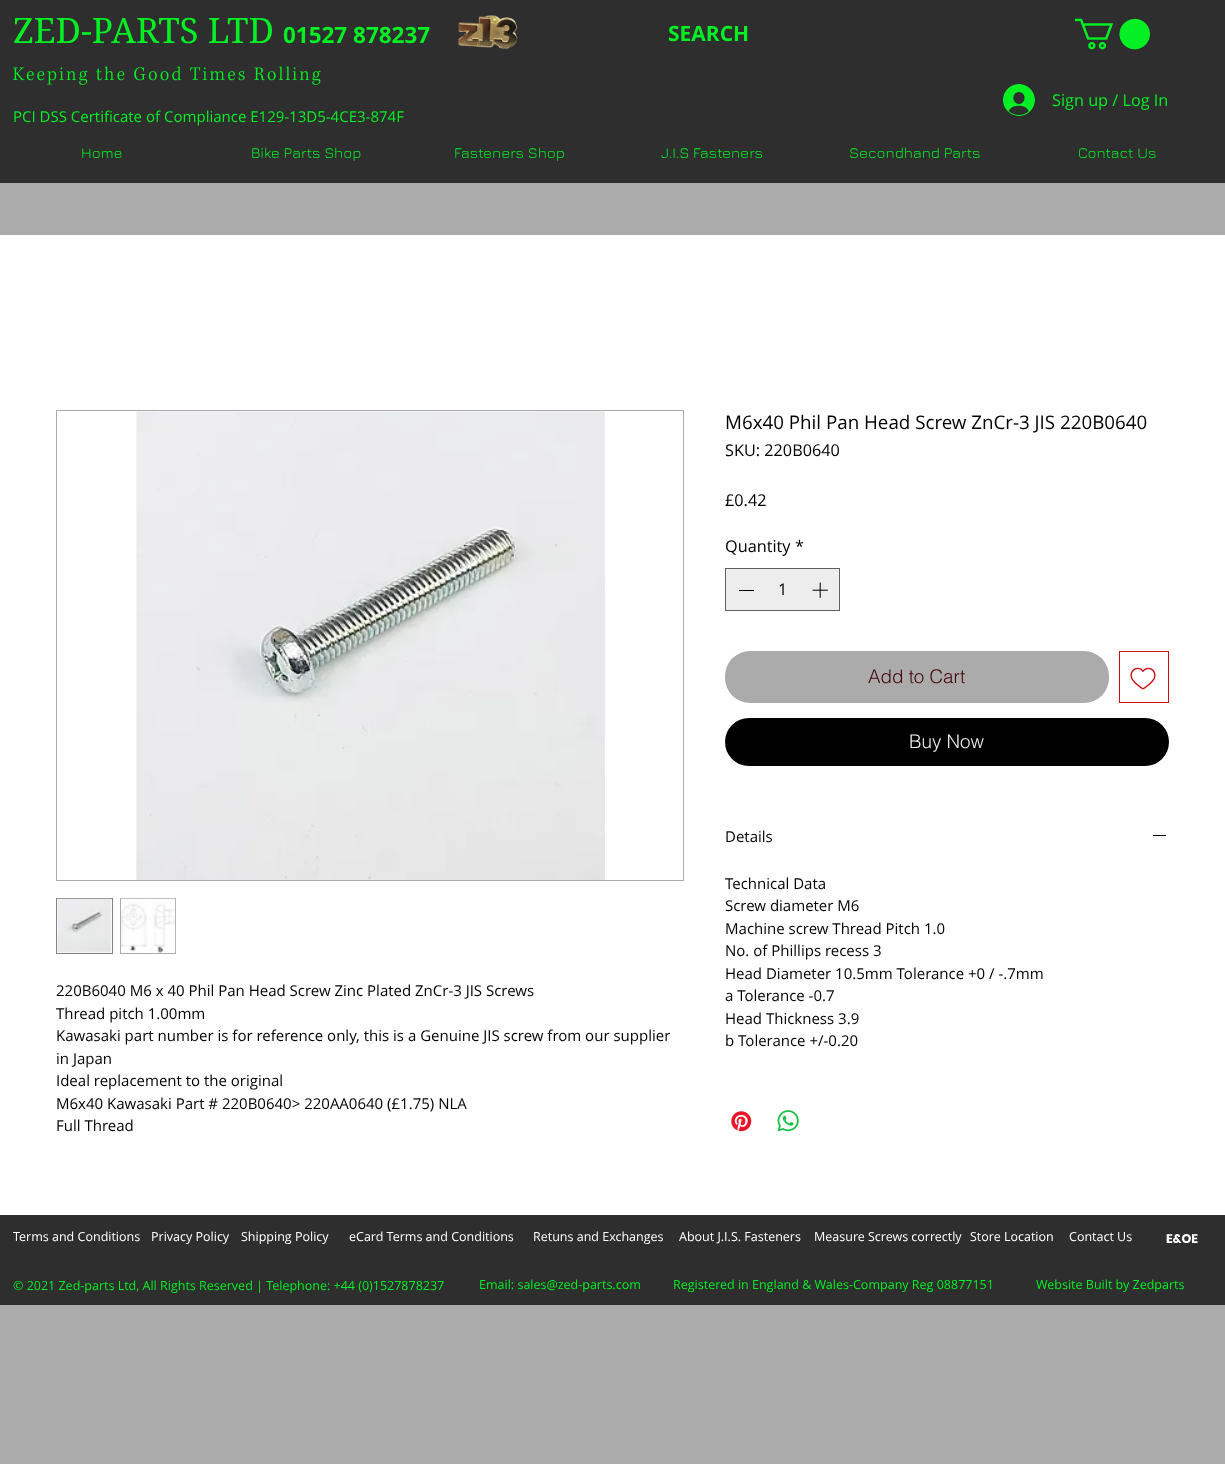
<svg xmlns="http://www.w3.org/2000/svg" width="1225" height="1464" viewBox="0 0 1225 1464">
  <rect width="100%" height="100%" fill="rgb(171,171,171)"/>
  <rect x="0" y="0" width="1225" height="183" fill="rgb(47,46,46)"/>
  <text x="13" y="43" font-family="'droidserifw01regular'" font-size="35" fill="rgb(5,240,36)">ZED-PARTS LTD</text>
  <text x="283" y="43" font-family="Open Sans" font-size="22.5" font-weight="bold" fill="rgb(5,240,36)">01527 878237</text>
  <image x="458" y="15" width="60" height="35" href="pic1.png"/>
  <text x="668" y="41" font-family="Open Sans" font-size="21" font-weight="bold" fill="rgb(5,240,36)">SEARCH</text>
  <image x="1075" y="18" width="75" height="32" href="pic2.png"/>
  <image x="12" y="66" width="309" height="19" href="pic3.png"/>
  <image x="1003" y="84" width="32" height="32" href="pic4.png"/>
  <text x="1052" y="106" font-family="Open Sans" font-size="16.25" fill="rgb(5,240,36)">Sign up / Log In</text>
  <text x="13" y="122" font-family="Open Sans" font-size="15" fill="rgb(5,240,36)">PCI DSS Certificate of Compliance E129-13D5-4CE3-874F</text>
  <g font-family="Jura" font-size="15" fill="rgb(5,240,36)">
    <text x="81" y="158">Home</text>
    <text x="251" y="158">Bike Parts Shop</text>
    <text x="454" y="158">Fasteners Shop</text>
    <text x="661" y="158">J.I.S Fasteners</text>
    <text x="849" y="158">Secondhand Parts</text>
    <text x="1078" y="158">Contact Us</text>
  </g>
  <rect x="0" y="235" width="1225" height="980" fill="rgb(255,255,255)"/>
  <rect x="56.5" y="410.5" width="627" height="470" fill="none" stroke="rgb(171,171,171)"/>
  <image x="136" y="411" width="469" height="469" href="pic5.png"/>
  <rect x="56.5" y="898.5" width="56" height="55" fill="none" stroke="rgb(130,130,130)"/>
  <image x="57" y="898" width="55" height="55" href="pic6.png"/>
  <rect x="120.5" y="898.5" width="55" height="55" fill="none" stroke="rgb(171,171,171)"/>
  <image x="121" y="898" width="55" height="55" href="pic7.png"/>
  <g font-family="Open Sans" font-size="15" fill="rgb(0,0,0)">
    <text>
      <tspan x="56" y="996">220B6040 M6 x 40 Phil Pan Head Screw Zinc Plated ZnCr-3 JIS Screws</tspan>
      <tspan x="56" y="1019">Thread pitch 1.00mm</tspan>
      <tspan x="56" y="1041">Kawasaki part number is for reference only, this is a Genuine JIS screw from our supplier</tspan>
      <tspan x="56" y="1064">in Japan</tspan>
      <tspan x="56" y="1086">Ideal replacement to the original</tspan>
      <tspan x="56" y="1109">M6x40 Kawasaki Part # 220B0640&gt; 220AA0640 (£1.75) NLA</tspan>
      <tspan x="56" y="1131">Full Thread</tspan>
    </text>
  </g>
  <text x="725" y="429" font-family="Open Sans" font-size="18.75" fill="rgb(0,0,0)">M6x40 Phil Pan Head Screw ZnCr-3 JIS 220B0640</text>
  <g font-family="Open Sans" font-size="16.25" fill="rgb(0,0,0)">
    <text x="725" y="456">SKU: 220B0640</text>
    <text x="725" y="506">£0.42</text>
    <text x="725" y="552">Quantity</text>
    <text x="795" y="552">*</text>
  </g>
  <rect x="725.5" y="568.5" width="114" height="42" fill="rgb(237,237,237)" stroke="rgb(95,95,95)"/>
  <rect x="739" y="590" width="15" height="1" fill="rgb(0,0,0)"/>
  <text x="778" y="595" font-family="Open Sans" font-size="16.25" fill="rgb(0,0,0)">1</text>
  <image x="812" y="582" width="16" height="16" href="pic8.png"/>
  <rect x="725" y="651" width="384" height="52" rx="25" fill="rgb(171,171,171)"/>
  <text x="868" y="683" font-family="helvetica" font-size="18.75" font-weight="300" fill="rgb(68,5,6)">Add to Cart</text>
  <rect x="1119.5" y="651.5" width="49" height="51" fill="none" stroke="rgb(204,16,19)"/>
  <image x="1130" y="667" width="26" height="23" href="pic9.png"/>
  <rect x="725" y="718" width="444" height="48" rx="24" fill="rgb(0,0,0)"/>
  <text x="909" y="748" font-family="helvetica" font-size="18.75" font-weight="300" fill="rgb(237,237,237)">Buy Now</text>
  <text x="725" y="842" font-family="Open Sans" font-size="15" fill="rgb(0,0,0)">Details</text>
  <rect x="1153" y="835" width="13" height="1" fill="rgb(0,0,0)"/>
  <g font-family="Open Sans" font-size="15" fill="rgb(0,0,0)">
    <text>
      <tspan x="725" y="889">Technical Data</tspan>
      <tspan x="725" y="911">Screw diameter M6</tspan>
      <tspan x="725" y="934">Machine screw Thread Pitch 1.0</tspan>
      <tspan x="725" y="956">No. of Phillips recess 3</tspan>
      <tspan x="725" y="979">Head Diameter 10.5mm Tolerance +0 / -.7mm</tspan>
      <tspan x="725" y="1001">a Tolerance -0.7</tspan>
      <tspan x="725" y="1024">Head Thickness 3.9</tspan>
      <tspan x="725" y="1046">b Tolerance +/-0.20</tspan>
    </text>
  </g>
  <image x="731" y="1111" width="21" height="21" href="pic10.png"/>
  <image x="777" y="1110" width="22" height="22" href="pic11.png"/>
  <rect x="0" y="1215" width="1225" height="90" fill="rgb(47,46,46)"/>
  <g font-family="Open Sans" font-size="12.5" fill="rgb(255,255,255)">
    <text x="13" y="1241">Terms and Conditions</text>
    <text x="151" y="1241">Privacy Policy</text>
    <text x="241" y="1241">Shipping Policy</text>
    <text x="349" y="1241">eCard Terms and Conditions</text>
    <text x="533" y="1241">Retuns and Exchanges</text>
    <text x="679" y="1241">About J.I.S. Fasteners</text>
    <text x="814" y="1241">Measure Screws correctly</text>
    <text x="970" y="1241">Store Location</text>
    <text x="1069" y="1241">Contact Us</text>
  </g>
  <text x="1166" y="1243" font-family="Poppins" font-size="12.5" font-weight="bold" fill="rgb(255,255,255)">E&amp;OE</text>
  <g font-family="Open Sans" font-size="12.5" fill="rgb(5,240,36)">
    <text x="13" y="1290">© 2021 Zed-parts Ltd, All Rights Reserved | Telephone: +44 (0)1527878237</text>
    <text x="479" y="1289">Email: sales@zed-parts.com</text>
    <text x="673" y="1289">Registered in England &amp; Wales-Company Reg 08877151</text>
    <text x="1036" y="1289">Website Built by Zedparts</text>
  </g>
</svg>
